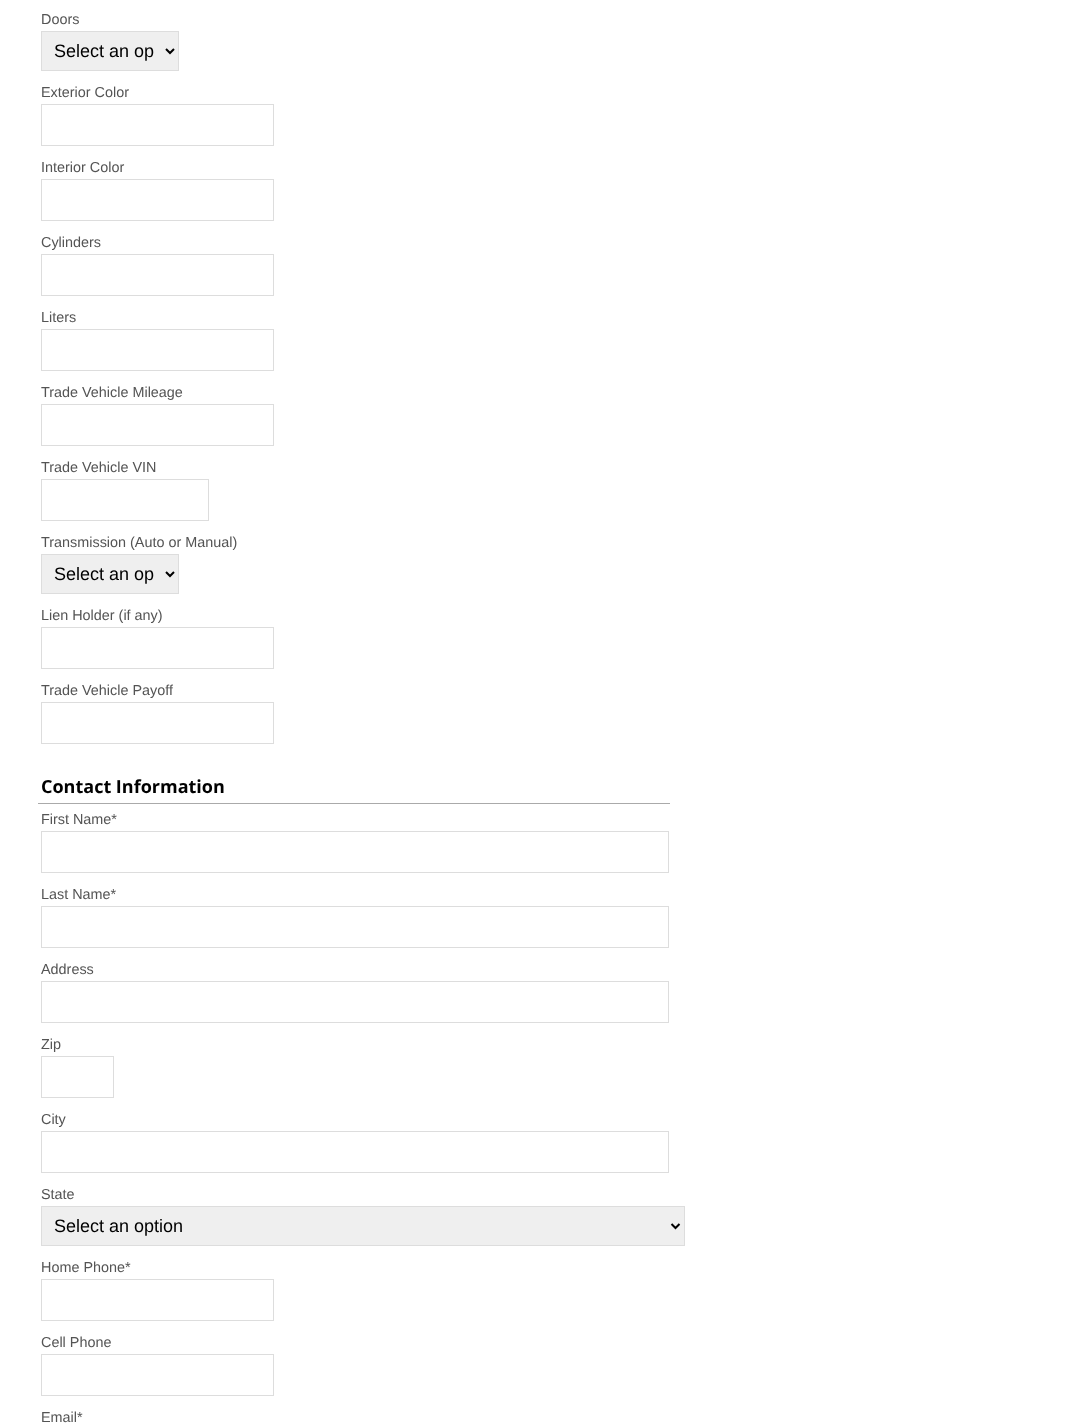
<svg xmlns="http://www.w3.org/2000/svg" width="1073" height="1425" viewBox="0 0 1073 1425">
  <rect width="100%" height="100%" fill="rgb(255,255,255)"/>
  <text x="41" y="24" font-family="Liberation Sans" font-size="14.4" fill="rgb(84,84,84)">Doors</text>
  <rect x="41.5" y="31.5" width="137" height="39" fill="rgb(239,239,239)" stroke="rgb(221,221,221)"/>
  <path d="M166 49L170 53L174 49" fill="none" stroke="rgb(0,0,0)" stroke-width="2"/>
  <text x="54" y="57" font-family="Liberation Sans" font-size="18" fill="rgb(0,0,0)">Select an op</text>
  <text x="41" y="97" font-family="Liberation Sans" font-size="14.4" fill="rgb(84,84,84)">Exterior Color</text>
  <rect x="41.5" y="104.5" width="232" height="41" fill="none" stroke="rgb(221,221,221)"/>
  <text x="41" y="172" font-family="Liberation Sans" font-size="14.4" fill="rgb(84,84,84)">Interior Color</text>
  <rect x="41.5" y="179.5" width="232" height="41" fill="none" stroke="rgb(221,221,221)"/>
  <text x="41" y="247" font-family="Liberation Sans" font-size="14.4" fill="rgb(84,84,84)">Cylinders</text>
  <rect x="41.5" y="254.5" width="232" height="41" fill="none" stroke="rgb(221,221,221)"/>
  <text x="41" y="322" font-family="Liberation Sans" font-size="14.4" fill="rgb(84,84,84)">Liters</text>
  <rect x="41.5" y="329.5" width="232" height="41" fill="none" stroke="rgb(221,221,221)"/>
  <text x="41" y="397" font-family="Liberation Sans" font-size="14.4" fill="rgb(84,84,84)">Trade Vehicle Mileage</text>
  <rect x="41.5" y="404.5" width="232" height="41" fill="none" stroke="rgb(221,221,221)"/>
  <text x="41" y="472" font-family="Liberation Sans" font-size="14.4" fill="rgb(84,84,84)">Trade Vehicle VIN</text>
  <rect x="41.5" y="479.5" width="167" height="41" fill="none" stroke="rgb(221,221,221)"/>
  <text x="41" y="547" font-family="Liberation Sans" font-size="14.4" fill="rgb(84,84,84)">Transmission (Auto or Manual)</text>
  <rect x="41.5" y="554.5" width="137" height="39" fill="rgb(239,239,239)" stroke="rgb(221,221,221)"/>
  <path d="M166 572L170 576L174 572" fill="none" stroke="rgb(0,0,0)" stroke-width="2"/>
  <text x="54" y="580" font-family="Liberation Sans" font-size="18" fill="rgb(0,0,0)">Select an op</text>
  <text x="41" y="620" font-family="Liberation Sans" font-size="14.4" fill="rgb(84,84,84)">Lien Holder (if any)</text>
  <rect x="41.5" y="627.5" width="232" height="41" fill="none" stroke="rgb(221,221,221)"/>
  <text x="41" y="695" font-family="Liberation Sans" font-size="14.4" fill="rgb(84,84,84)">Trade Vehicle Payoff</text>
  <rect x="41.5" y="702.5" width="232" height="41" fill="none" stroke="rgb(221,221,221)"/>
  <rect x="38" y="803" width="632" height="1" fill="rgb(170,170,170)"/>
  <text x="41" y="793" font-family="Open Sans" font-size="18" font-weight="bold" fill="rgb(0,0,0)">Contact Information</text>
  <text x="41" y="824" font-family="Liberation Sans" font-size="14.4" fill="rgb(84,84,84)">First Name*</text>
  <rect x="41.5" y="831.5" width="627" height="41" fill="none" stroke="rgb(221,221,221)"/>
  <text x="41" y="899" font-family="Liberation Sans" font-size="14.4" fill="rgb(84,84,84)">Last Name*</text>
  <rect x="41.5" y="906.5" width="627" height="41" fill="none" stroke="rgb(221,221,221)"/>
  <text x="41" y="974" font-family="Liberation Sans" font-size="14.4" fill="rgb(84,84,84)">Address</text>
  <rect x="41.5" y="981.5" width="627" height="41" fill="none" stroke="rgb(221,221,221)"/>
  <text x="41" y="1049" font-family="Liberation Sans" font-size="14.4" fill="rgb(84,84,84)">Zip</text>
  <rect x="41.5" y="1056.5" width="72" height="41" fill="none" stroke="rgb(221,221,221)"/>
  <text x="41" y="1124" font-family="Liberation Sans" font-size="14.4" fill="rgb(84,84,84)">City</text>
  <rect x="41.5" y="1131.5" width="627" height="41" fill="none" stroke="rgb(221,221,221)"/>
  <text x="41" y="1199" font-family="Liberation Sans" font-size="14.4" fill="rgb(84,84,84)">State</text>
  <rect x="41.5" y="1206.5" width="643" height="39" fill="rgb(239,239,239)" stroke="rgb(221,221,221)"/>
  <path d="M671.5 1224L675.5 1228L679.5 1224" fill="none" stroke="rgb(0,0,0)" stroke-width="2"/>
  <text x="54" y="1232" font-family="Liberation Sans" font-size="18" fill="rgb(0,0,0)">Select an option</text>
  <text x="41" y="1272" font-family="Liberation Sans" font-size="14.4" fill="rgb(84,84,84)">Home Phone*</text>
  <rect x="41.5" y="1279.5" width="232" height="41" fill="none" stroke="rgb(221,221,221)"/>
  <text x="41" y="1347" font-family="Liberation Sans" font-size="14.4" fill="rgb(84,84,84)">Cell Phone</text>
  <rect x="41.5" y="1354.5" width="232" height="41" fill="none" stroke="rgb(221,221,221)"/>
  <text x="41" y="1422" font-family="Liberation Sans" font-size="14.4" fill="rgb(84,84,84)">Email*</text>
</svg>
